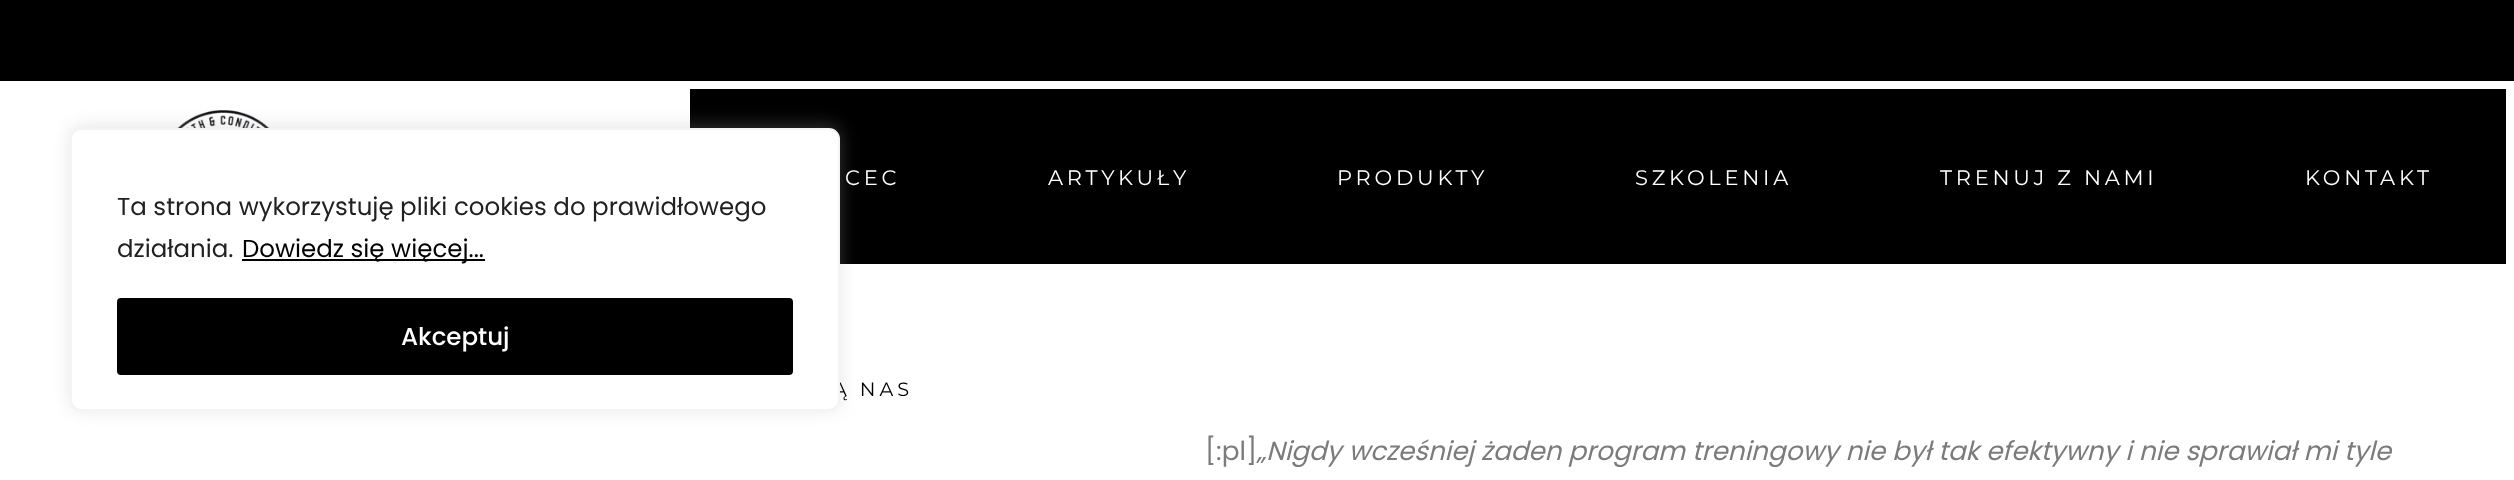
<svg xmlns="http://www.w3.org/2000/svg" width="2514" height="480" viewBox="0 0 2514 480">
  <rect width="100%" height="100%" fill="rgb(255,255,255)"/>
  <image x="177" y="110" width="93" height="18" href="pic1.png"/>
  <rect x="690" y="89" width="1816" height="175" fill="rgb(0,0,0)"/>
  <rect x="70" y="126" width="770" height="284" rx="11" fill="rgba(172,171,171,0.3)" filter="blur(9px)"/>
  <text x="833" y="396" font-family="Montserrat" font-size="19.25" letter-spacing="4" fill="rgb(0,0,0)">Ą NAS</text>
  <rect x="71" y="129" width="768" height="281" rx="10" fill="rgb(255,255,255)" stroke="rgb(244,244,244)" stroke-width="2"/>
  <g font-family="Poppins" font-size="24.5" fill="rgb(33,33,33)">
    <text>
      <tspan x="117" y="215">Ta strona wykorzystuję pliki cookies do prawidłowego</tspan>
      <tspan x="117" y="257">działania.</tspan>
    </text>
  </g>
  <rect x="242" y="259" width="243" height="2" fill="rgb(0,0,0)"/>
  <text x="242" y="257" font-family="Poppins" font-size="24.5" fill="rgb(0,0,0)">Dowiedz się więcej...</text>
  <rect x="119" y="300" width="672" height="73" rx="2" fill="rgb(0,0,0)" stroke="rgb(0,0,0)" stroke-width="4"/>
  <text x="401" y="345" font-family="Poppins" font-size="24.5" font-weight="500" fill="rgb(255,255,255)">Akceptuj</text>
  <rect x="0" y="0" width="2514" height="81" fill="rgb(0,0,0)"/>
  <g font-family="Montserrat" font-size="21" letter-spacing="3.75" fill="rgb(255,255,255)">
    <text x="845" y="185">CEC</text>
    <text x="1048" y="185">ARTYKUŁY</text>
    <text x="1337" y="185">PRODUKTY</text>
    <text x="1635" y="185">SZKOLENIA</text>
    <text x="1940" y="185">TRENUJ Z NAMI</text>
    <text x="2305" y="185">KONTAKT</text>
  </g>
  <text x="1205" y="460" font-family="Poppins" font-size="26.25" fill="rgb(123,123,123)">[:pl]</text>
  <text x="1257" y="460" font-family="Poppins" font-size="26.25" font-style="italic" fill="rgb(123,123,123)">„Nigdy wcześniej żaden program treningowy nie był tak efektywny i nie sprawiał mi tyle</text>
</svg>
